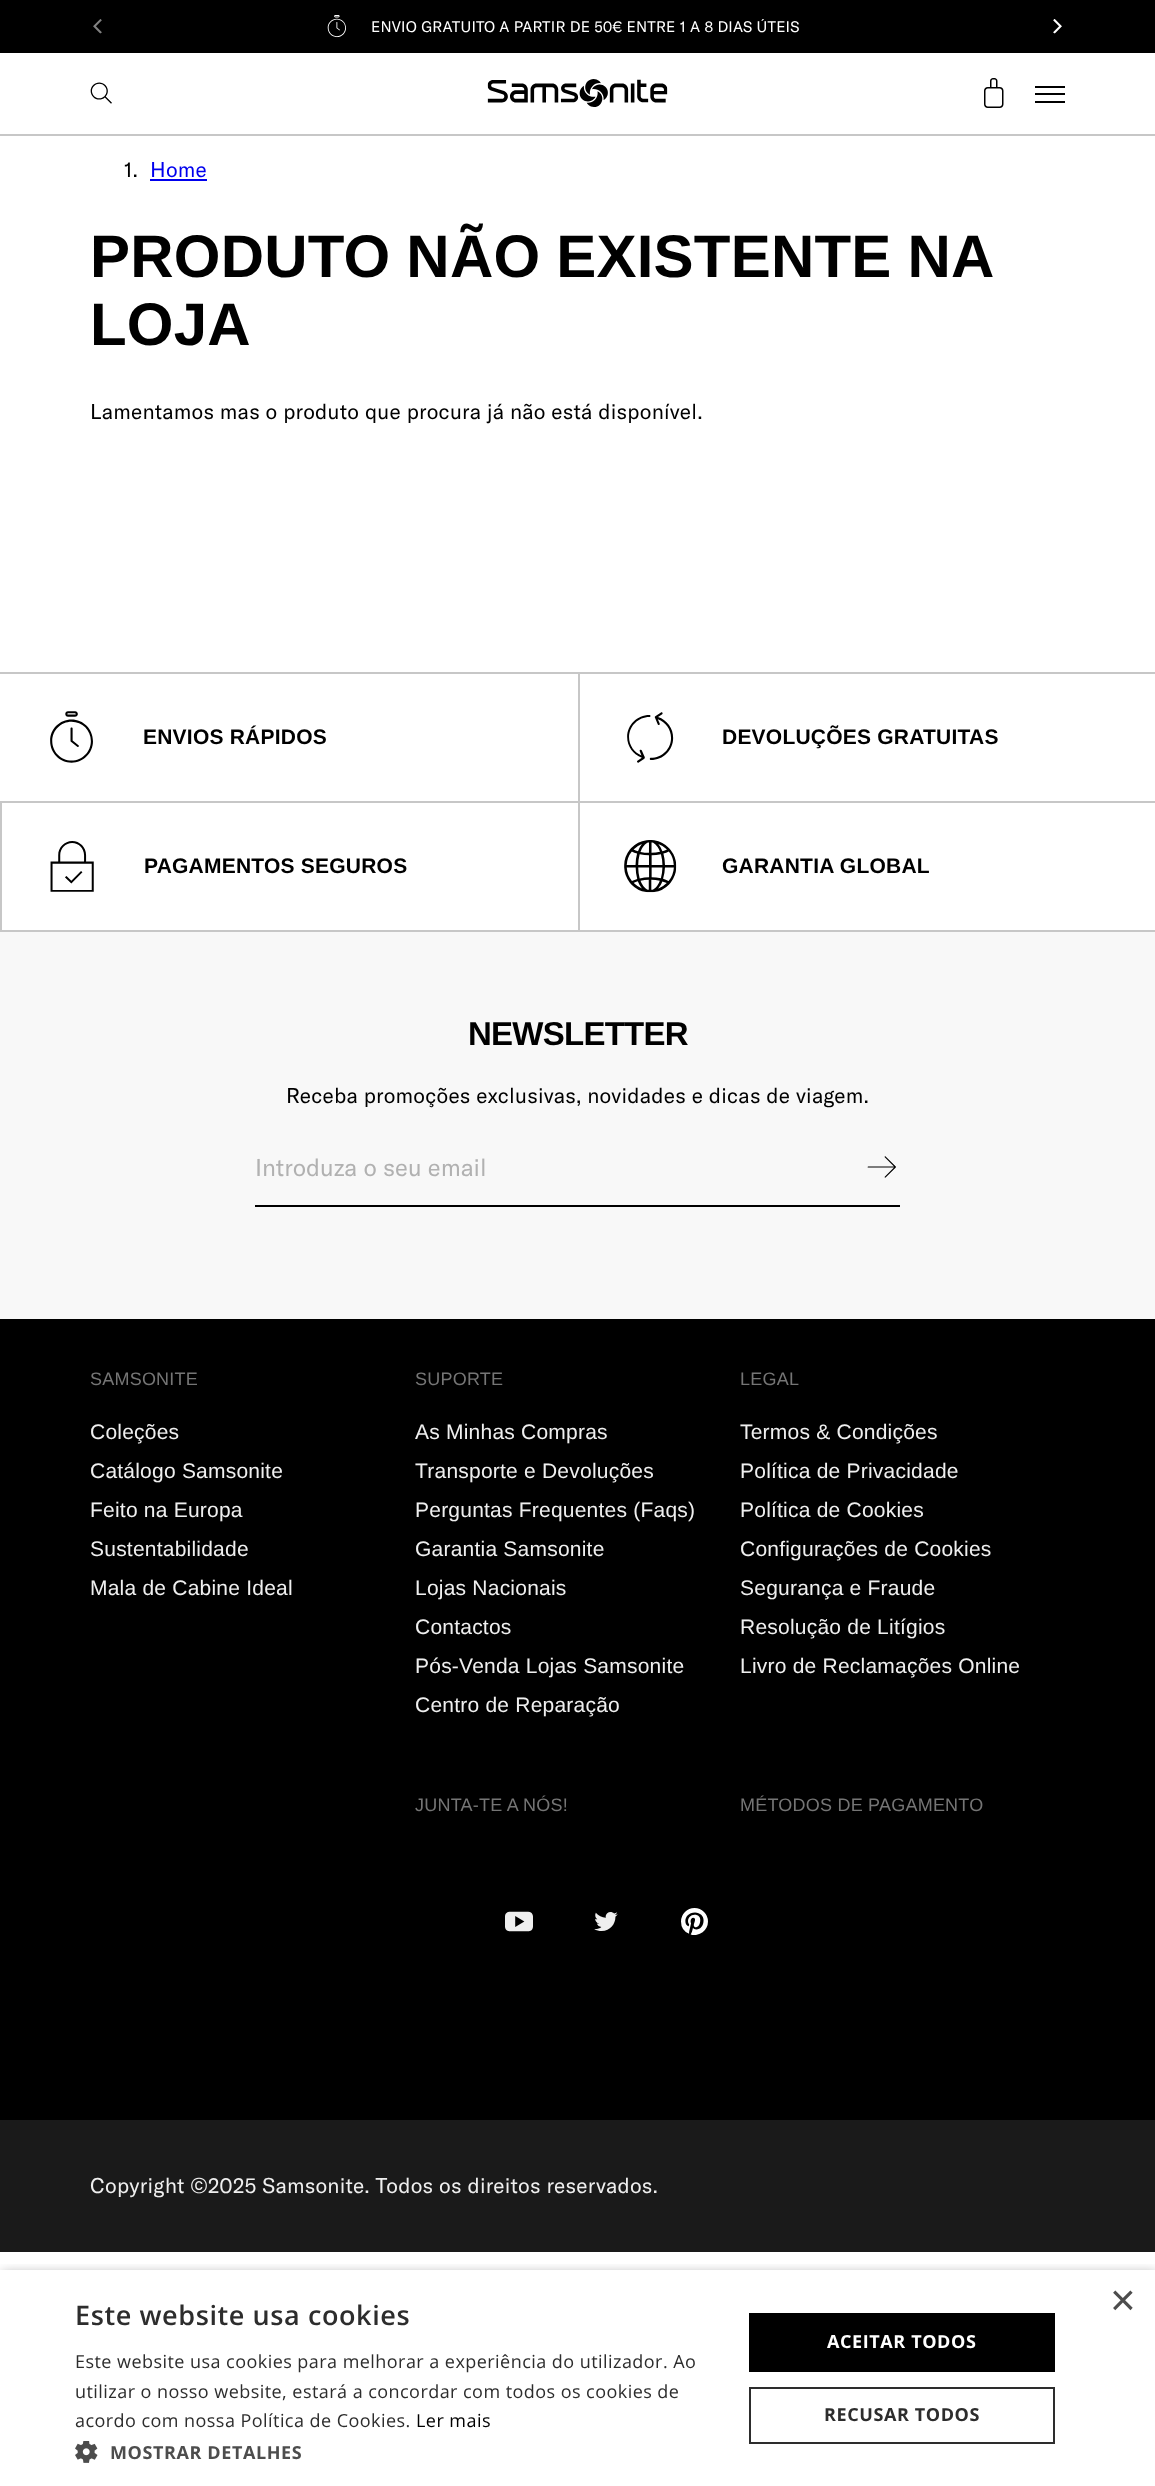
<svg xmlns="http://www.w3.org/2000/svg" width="1155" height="2486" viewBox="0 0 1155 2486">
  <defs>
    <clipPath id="clip1"><rect x="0" y="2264" width="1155" height="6"/></clipPath>
  </defs>
  <rect width="100%" height="100%" fill="rgb(255,255,255)"/>
  <rect x="0" y="0" width="1155" height="53" fill="rgb(0,0,0)"/>
  <image x="93" y="19" width="9" height="15" href="pic1.png"/>
  <image x="1053" y="19" width="9" height="15" href="pic2.png"/>
  <image x="327" y="15" width="19" height="23" href="pic3.png"/>
  <text x="371" y="32" font-family="GT America" font-size="15" letter-spacing="0.22" fill="rgb(255,255,255)">ENVIO GRATUITO A PARTIR DE 50€ ENTRE 1 A 8 DIAS ÚTEIS</text>
  <rect x="0" y="134" width="1155" height="2" fill="rgb(199,199,199)"/>
  <image x="90" y="82" width="22" height="22" href="pic4.png"/>
  <image x="487" y="79" width="181" height="28" href="pic5.png"/>
  <image x="984" y="78" width="20" height="30" href="pic6.png"/>
  <rect x="1035" y="86" width="30" height="2" fill="rgb(0,0,0)"/>
  <rect x="1035" y="101" width="30" height="2" fill="rgb(0,0,0)"/>
  <rect x="1035" y="93" width="30" height="2" fill="rgb(0,0,0)"/>
  <text x="124" y="177" font-family="GT America" font-size="21" letter-spacing="0.22" fill="rgb(0,0,0)">1.</text>
  <text x="150" y="177" font-family="GT America" font-size="21" letter-spacing="0.22" fill="rgb(0,0,238)">Home</text>
  <rect x="150" y="179" width="57" height="2" fill="rgb(0,0,238)"/>
  <g font-family="Liberation Sans" font-size="60" font-weight="bold" letter-spacing="0.22" fill="rgb(0,0,0)">
    <text>
      <tspan x="90" y="277" word-spacing="-1">PRODUTO NÃO EXISTENTE NA</tspan>
      <tspan x="90" y="345">LOJA</tspan>
    </text>
  </g>
  <text x="90" y="419" font-family="GT America" font-size="21" letter-spacing="0.22" fill="rgb(0,0,0)">Lamentamos mas o produto que procura já não está disponível.</text>
  <rect x="0" y="672" width="1155" height="2" fill="rgb(199,199,199)"/>
  <image x="50" y="711" width="43" height="52" href="pic7.png"/>
  <text x="143" y="744" font-family="Liberation Sans" font-size="21" font-weight="bold" letter-spacing="0.22" fill="rgb(0,0,0)">ENVIOS RÁPIDOS</text>
  <rect x="578" y="672" width="2" height="129" fill="rgb(199,199,199)"/>
  <image x="627" y="712" width="47" height="51" href="pic8.png"/>
  <text x="722" y="744" font-family="Liberation Sans" font-size="21" font-weight="bold" letter-spacing="0.22" fill="rgb(0,0,0)">DEVOLUÇÕES GRATUITAS</text>
  <rect x="0" y="801" width="1155" height="2" fill="rgb(199,199,199)"/>
  <rect x="0" y="930" width="1155" height="2" fill="rgb(199,199,199)"/>
  <rect x="0" y="801" width="2" height="131" fill="rgb(199,199,199)"/>
  <image x="50" y="841" width="44" height="51" href="pic9.png"/>
  <text x="144" y="873" font-family="Liberation Sans" font-size="21" font-weight="bold" letter-spacing="0.22" fill="rgb(0,0,0)">PAGAMENTOS SEGUROS</text>
  <rect x="578" y="801" width="2" height="131" fill="rgb(199,199,199)"/>
  <image x="624" y="840" width="53" height="53" href="pic10.png"/>
  <text x="722" y="873" font-family="Liberation Sans" font-size="21" font-weight="bold" letter-spacing="0.22" fill="rgb(0,0,0)">GARANTIA GLOBAL</text>
  <rect x="0" y="932" width="1155" height="387" fill="rgb(248,248,248)"/>
  <text x="468" y="1045" font-family="Liberation Sans" font-size="33" font-weight="bold" letter-spacing="-0.75" fill="rgb(0,0,0)">NEWSLETTER</text>
  <text x="286" y="1103" font-family="GT America" font-size="21" letter-spacing="0.22" fill="rgb(0,0,0)">Receba promoções exclusivas, novidades e dicas de viagem.</text>
  <rect x="255" y="1205" width="645" height="2" fill="rgb(0,0,0)"/>
  <text x="255" y="1176" font-family="GT America" font-size="24" fill="rgb(177,177,177)">Introduza o seu email</text>
  <image x="867" y="1156" width="29" height="22" href="pic11.png"/>
  <rect x="0" y="1319" width="1155" height="801" fill="rgb(0,0,0)"/>
  <text x="90" y="1385" font-family="Liberation Sans" font-size="18" letter-spacing="0.22" fill="rgb(117,117,117)">SAMSONITE</text>
  <g font-family="Liberation Sans" font-size="21" letter-spacing="0.22" fill="rgb(239,239,239)">
    <text>
      <tspan x="90" y="1439">Coleções</tspan>
      <tspan x="90" y="1478">Catálogo Samsonite</tspan>
      <tspan x="90" y="1517">Feito na Europa</tspan>
      <tspan x="90" y="1556">Sustentabilidade</tspan>
      <tspan x="90" y="1595">Mala de Cabine Ideal</tspan>
    </text>
  </g>
  <text x="415" y="1385" font-family="Liberation Sans" font-size="18" letter-spacing="0.22" fill="rgb(117,117,117)">SUPORTE</text>
  <g font-family="Liberation Sans" font-size="21" letter-spacing="0.22" fill="rgb(239,239,239)">
    <text>
      <tspan x="415" y="1439">As Minhas Compras</tspan>
      <tspan x="415" y="1478">Transporte e Devoluções</tspan>
      <tspan x="415" y="1517">Perguntas Frequentes (Faqs)</tspan>
      <tspan x="415" y="1556">Garantia Samsonite</tspan>
      <tspan x="415" y="1595">Lojas Nacionais</tspan>
      <tspan x="415" y="1634">Contactos</tspan>
      <tspan x="415" y="1673">Pós-Venda Lojas Samsonite</tspan>
      <tspan x="415" y="1712">Centro de Reparação</tspan>
    </text>
  </g>
  <text x="740" y="1385" font-family="Liberation Sans" font-size="18" letter-spacing="0.22" fill="rgb(117,117,117)">LEGAL</text>
  <g font-family="Liberation Sans" font-size="21" letter-spacing="0.22" fill="rgb(239,239,239)">
    <text>
      <tspan x="740" y="1439">Termos &amp; Condições</tspan>
      <tspan x="740" y="1478">Política de Privacidade</tspan>
      <tspan x="740" y="1517">Política de Cookies</tspan>
      <tspan x="740" y="1556">Configurações de Cookies</tspan>
      <tspan x="740" y="1595">Segurança e Fraude</tspan>
      <tspan x="740" y="1634">Resolução de Litígios</tspan>
      <tspan x="740" y="1673">Livro de Reclamações Online</tspan>
    </text>
  </g>
  <text x="415" y="1811" font-family="Liberation Sans" font-size="18" letter-spacing="0.22" fill="rgb(117,117,117)">JUNTA-TE A NÓS!</text>
  <image x="505" y="1911" width="28" height="21" href="pic12.png"/>
  <image x="594" y="1912" width="24" height="19" href="pic13.png"/>
  <image x="681" y="1908" width="27" height="27" href="pic14.png"/>
  <text x="740" y="1811" font-family="Liberation Sans" font-size="18" letter-spacing="0.22" fill="rgb(117,117,117)">MÉTODOS DE PAGAMENTO</text>
  <rect x="0" y="2120" width="1155" height="132" fill="rgb(26,26,26)"/>
  <text x="90" y="2193" font-family="GT America" font-size="21" letter-spacing="0.22" fill="rgb(239,239,239)">Copyright ©2025 Samsonite. Todos os direitos reservados.</text>
  <g clip-path="url(#clip1)">
    <rect x="2" y="2273" width="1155" height="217" fill="rgba(0,0,0,0.35)" filter="blur(6px)"/>
  </g>
  <text x="1110" y="2315" font-family="Liberation Sans" font-size="44" fill="rgb(77,77,77)">×</text>
  <text x="75" y="2325" font-family="Open Sans" font-size="27" font-weight="600" letter-spacing="0.6" fill="rgb(45,45,45)">Este website usa cookies</text>
  <g font-family="Open Sans" font-size="18" letter-spacing="0.45" fill="rgb(45,45,45)">
    <text>
      <tspan x="75" y="2368">Este website usa cookies para melhorar a experiência do utilizador. Ao</tspan>
      <tspan x="75" y="2398">utilizar o nosso website, estará a concordar com todos os cookies de</tspan>
      <tspan x="75" y="2427">acordo com nossa Política de Cookies.</tspan>
    </text>
  </g>
  <text x="416" y="2427" font-family="Open Sans" font-size="18" letter-spacing="0.45" fill="rgb(0,0,0)">Ler mais</text>
  <image x="75" y="2441" width="23" height="22" href="pic15.png"/>
  <text x="110" y="2459" font-family="Open Sans" font-size="18" font-weight="bold" letter-spacing="0.6" fill="rgb(77,77,77)">MOSTRAR DETALHES</text>
  <rect x="749" y="2313" width="306" height="59" fill="rgb(0,0,0)"/>
  <text x="827" y="2348" font-family="Open Sans" font-size="18" font-weight="bold" letter-spacing="0.6" fill="rgb(255,255,255)">ACEITAR TODOS</text>
  <rect x="750" y="2388" width="304" height="55" fill="none" stroke="rgb(45,45,45)" stroke-width="2"/>
  <text x="824" y="2421" font-family="Open Sans" font-size="18" font-weight="bold" letter-spacing="0.6" fill="rgb(45,45,45)">RECUSAR TODOS</text>
</svg>
